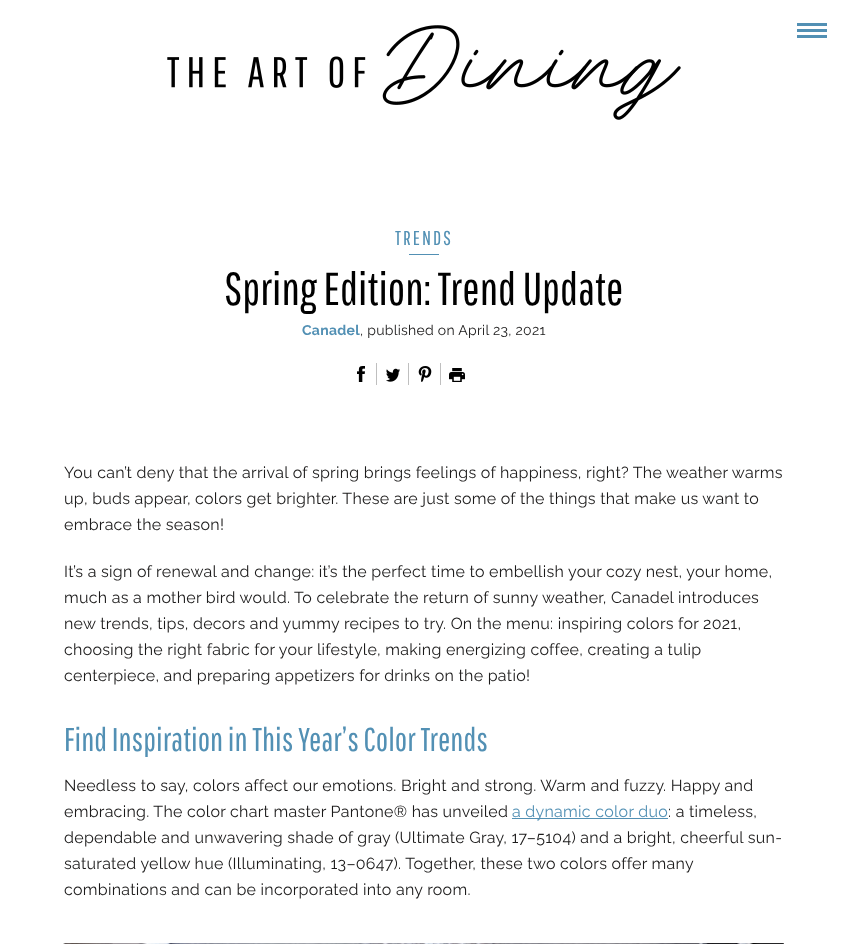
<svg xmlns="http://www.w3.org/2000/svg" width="847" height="944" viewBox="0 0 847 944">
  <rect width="100%" height="100%" fill="rgb(255,255,255)"/>
  <rect x="797" y="23" width="30" height="3" fill="rgb(82,144,180)"/>
  <rect x="797" y="29" width="30" height="3" fill="rgb(82,144,180)"/>
  <rect x="797" y="35" width="30" height="3" fill="rgb(82,144,180)"/>
  <image x="167" y="25" width="514" height="95" href="pic1.png"/>
  <text x="395" y="245" font-family="Pathway Gothic One" font-size="20" letter-spacing="2" fill="rgb(82,144,180)">TRENDS</text>
  <rect x="409" y="254" width="30" height="1" fill="rgb(82,144,180)"/>
  <text x="224" y="305" font-family="Pathway Gothic One" font-size="46" fill="rgb(0,0,0)">Spring Edition: Trend Update</text>
  <text x="302" y="335" font-family="Raleway" font-size="14" font-weight="bold" letter-spacing="0.27" fill="rgb(82,144,180)">Canadel</text>
  <text x="360" y="335" font-family="Raleway" font-size="14" letter-spacing="0.27" fill="rgb(27,26,26)">, published on April 23, 2021</text>
  <image x="357" y="366" width="8" height="16" href="pic2.png"/>
  <rect x="376" y="363" width="1" height="22" fill="rgb(191,191,191)"/>
  <image x="386" y="368" width="14" height="14" href="pic3.png"/>
  <rect x="408" y="363" width="1" height="22" fill="rgb(191,191,191)"/>
  <image x="418" y="366" width="14" height="16" href="pic4.png"/>
  <rect x="440" y="363" width="1" height="22" fill="rgb(191,191,191)"/>
  <image x="449" y="368" width="16" height="14" href="pic5.png"/>
  <g font-family="Raleway" font-size="16" letter-spacing="0.27" fill="rgb(27,26,26)">
    <text>
      <tspan x="64" y="478">You can’t deny that the arrival of spring brings feelings of happiness, right? The weather warms</tspan>
      <tspan x="64" y="504">up, buds appear, colors get brighter. These are just some of the things that make us want to</tspan>
      <tspan x="64" y="530">embrace the season!</tspan>
    </text>
    <text>
      <tspan x="64" y="577">It’s a sign of renewal and change: it’s the perfect time to embellish your cozy nest, your home,</tspan>
      <tspan x="64" y="603">much as a mother bird would. To celebrate the return of sunny weather, Canadel introduces</tspan>
      <tspan x="64" y="629">new trends, tips, decors and yummy recipes to try. On the menu: inspiring colors for 2021,</tspan>
      <tspan x="64" y="655">choosing the right fabric for your lifestyle, making energizing coffee, creating a tulip</tspan>
      <tspan x="64" y="681">centerpiece, and preparing appetizers for drinks on the patio!</tspan>
    </text>
  </g>
  <text x="64" y="751" font-family="Pathway Gothic One" font-size="32.75" fill="rgb(82,144,180)">Find Inspiration in This Year’s Color Trends</text>
  <g font-family="Raleway" font-size="16" letter-spacing="0.27" fill="rgb(27,26,26)">
    <text>
      <tspan x="64" y="791">Needless to say, colors affect our emotions. Bright and strong. Warm and fuzzy. Happy and</tspan>
      <tspan x="64" y="817">embracing. The color chart master Pantone® has unveiled</tspan>
    </text>
  </g>
  <rect x="512" y="818" width="156" height="1" fill="rgb(82,144,180)"/>
  <text x="512" y="817" font-family="Raleway" font-size="16" letter-spacing="0.27" fill="rgb(82,144,180)">a dynamic color duo</text>
  <g font-family="Raleway" font-size="16" letter-spacing="0.27" fill="rgb(27,26,26)">
    <text x="668" y="817">: a timeless,</text>
    <text>
      <tspan x="64" y="843">dependable and unwavering shade of gray (Ultimate Gray, 17–5104) and a bright, cheerful sun-</tspan>
      <tspan x="64" y="869">saturated yellow hue (Illuminating, 13–0647). Together, these two colors offer many</tspan>
      <tspan x="64" y="895">combinations and can be incorporated into any room.</tspan>
    </text>
  </g>
  <image x="63" y="943" width="721" height="1" href="pic6.png"/>
</svg>
